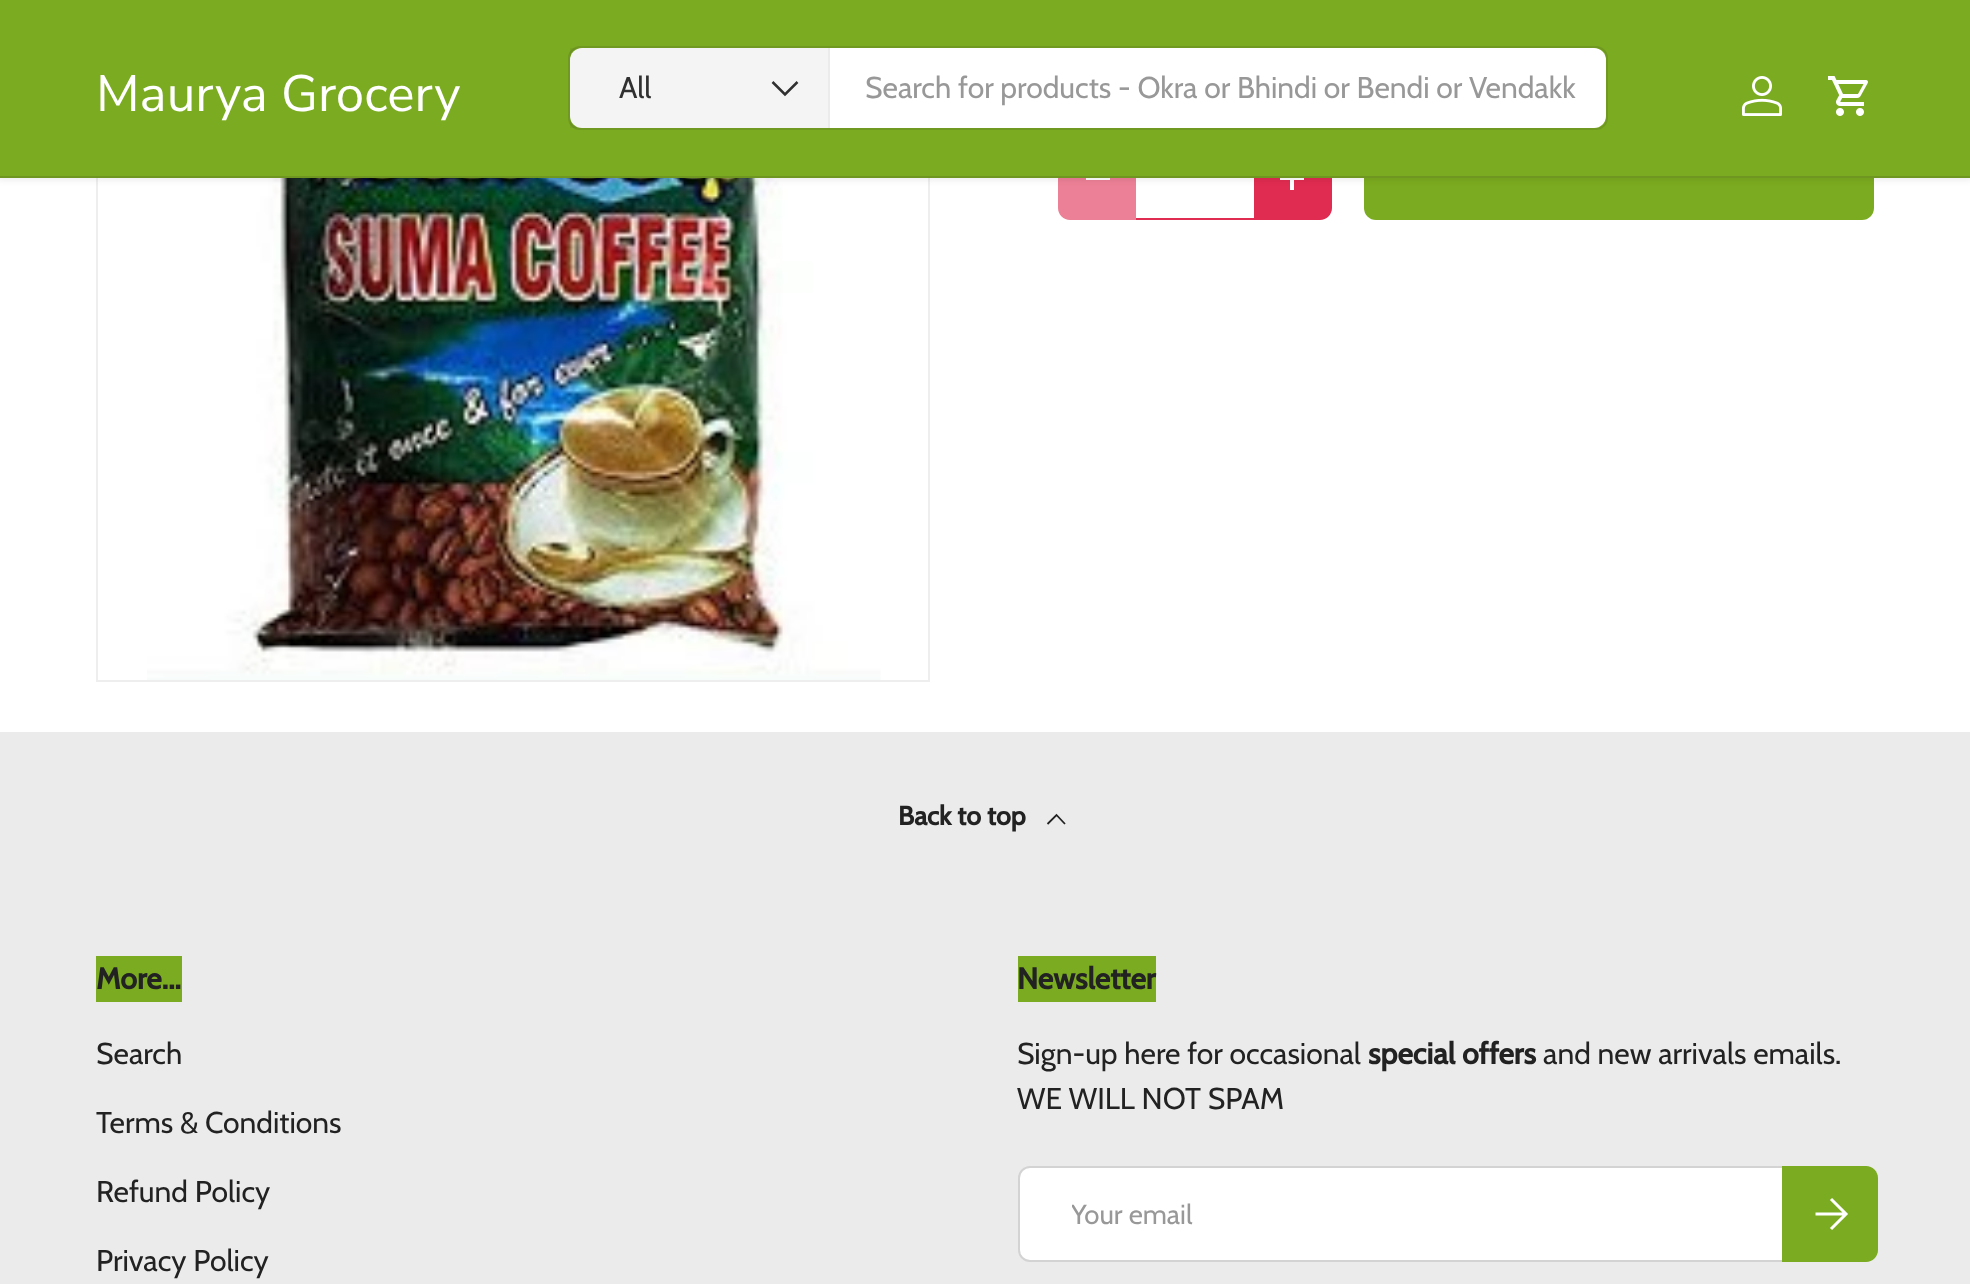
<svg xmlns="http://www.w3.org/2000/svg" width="1970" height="1284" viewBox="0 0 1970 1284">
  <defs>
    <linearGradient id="g1" gradientUnits="userSpaceOnUse" x1="379" y1="-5.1" x2="1839" y2="359"><stop offset="0.6" stop-color="rgb(150,191,73)"/><stop offset="0.6" stop-color="rgb(123,171,32)"/><stop offset="1" stop-color="rgb(123,171,32)"/></linearGradient>
    <clipPath id="clip1"><rect x="1072" y="1198" width="698" height="32"/></clipPath>
    <linearGradient id="g2" gradientUnits="userSpaceOnUse" x1="1587" y1="1177" x2="1881" y2="1251"><stop offset="0.6" stop-color="rgb(150,191,73)"/><stop offset="0.6" stop-color="rgb(123,171,32)"/><stop offset="1" stop-color="rgb(123,171,32)"/></linearGradient>
  </defs>
  <rect width="100%" height="100%" fill="rgb(255,255,255)"/>
  <rect x="97" y="-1" width="832" height="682" fill="none" stroke="rgb(238,238,238)" stroke-width="2"/>
  <image x="147" y="178" width="734" height="502" href="pic1.png"/>
  <path d="M1070 134H1136V220H1070C1063.5 220 1058 214.5 1058 208V146C1058 139.5 1063.5 134 1070 134Z" fill="rgb(236,128,150)"/>
  <rect x="1086" y="178" width="24" height="2" fill="rgb(255,255,255)"/>
  <rect x="1136" y="218" width="118" height="2" fill="rgb(224,44,80)"/>
  <path d="M1254 134H1320C1326.5 134 1332 139.5 1332 146V208C1332 214.5 1326.5 220 1320 220H1254Z" fill="rgb(224,44,80)"/>
  <rect x="1280" y="178" width="24" height="2" fill="rgb(255,255,255)"/>
  <rect x="1290" y="178" width="4" height="12" fill="rgb(255,255,255)"/>
  <rect x="1364" y="134" width="510" height="86" rx="12" fill="url(#g1)"/>
  <rect x="-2" y="-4" width="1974" height="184" fill="rgba(0,0,0,0.08)" filter="blur(3px)"/>
  <rect x="0" y="0" width="1970" height="176" fill="rgb(123,171,32)"/>
  <text x="96" y="111" font-family="Nunito Sans" font-size="51" fill="rgb(255,255,255)">Maurya Grocery</text>
  <rect x="569" y="47" width="1038" height="82" rx="11" fill="none" stroke="rgb(112,153,34)" stroke-width="2"/>
  <rect x="570" y="48" width="1036" height="80" rx="12" fill="rgb(255,255,255)"/>
  <rect x="570" y="48" width="258" height="80" fill="rgba(48,48,48,0.05)"/>
  <rect x="828" y="48" width="2" height="80" fill="rgb(235,235,235)"/>
  <text x="619" y="98" font-family="Cabin" font-size="30" fill="rgb(48,48,48)">All</text>
  <path d="M797.5 82L785 94.5L772.5 82" fill="none" stroke="rgb(48,48,48)" stroke-width="2.5"/>
  <text x="865" y="98" font-family="Cabin" font-size="30" fill="rgb(152,152,152)">Search for products - Okra or Bhindi or Bendi or Vendakk</text>
  <image x="1742" y="76" width="40" height="40" href="pic2.png"/>
  <image x="1828" y="76" width="40" height="40" href="pic3.png"/>
  <rect x="0" y="176" width="1970" height="2" fill="rgb(110,150,32)"/>
  <rect x="0" y="732" width="1970" height="552" fill="rgb(235,235,235)"/>
  <text x="898" y="825" font-family="Cabin" font-size="26.5" font-weight="bold" fill="rgb(34,34,34)">Back to top</text>
  <path d="M1047.5 824L1056.5 815L1065 824" fill="none" stroke="rgb(34,34,34)" stroke-width="1.8"/>
  <rect x="96" y="956" width="86" height="46" fill="rgb(123,171,32)"/>
  <text x="96" y="989" font-family="Cabin" font-size="30" font-weight="bold" fill="rgb(34,34,34)">More...</text>
  <g font-family="Cabin" font-size="30" fill="rgb(34,34,34)">
    <text x="96" y="1064">Search</text>
    <text x="96" y="1133">Terms &amp; Conditions</text>
    <text x="96" y="1202">Refund Policy</text>
    <text x="96" y="1271">Privacy Policy</text>
  </g>
  <rect x="1018" y="956" width="138" height="46" fill="rgb(123,171,32)"/>
  <text x="1017" y="989" font-family="Cabin" font-size="30" font-weight="bold" fill="rgb(34,34,34)">Newsletter</text>
  <text x="1017" y="1064" font-family="Cabin" font-size="30" fill="rgb(34,34,34)">Sign-up here for occasional</text>
  <text x="1368" y="1064" font-family="Cabin" font-size="30" font-weight="bold" fill="rgb(34,34,34)">special offers</text>
  <g font-family="Cabin" font-size="30" fill="rgb(34,34,34)">
    <text x="1543" y="1064">and new arrivals emails.</text>
    <text x="1017" y="1109">WE WILL NOT SPAM</text>
  </g>
  <rect x="1018" y="1166" width="856" height="96" rx="12" fill="rgb(255,255,255)"/>
  <rect x="1019" y="1167" width="854" height="94" rx="11" fill="none" stroke="rgba(34,34,34,0.2)" stroke-width="2"/>
  <g clip-path="url(#clip1)">
    <text x="1071" y="1224" font-family="Cabin" font-size="27.5" fill="rgb(152,152,152)">Your email</text>
  </g>
  <path d="M1782 1166H1866C1872.5 1166 1878 1171.5 1878 1178V1250C1878 1256.5 1872.5 1262 1866 1262H1782Z" fill="url(#g2)"/>
  <path d="M1815.5 1214H1845M1831 1199L1846 1214L1831 1229" fill="none" stroke="rgb(255,255,255)" stroke-width="3"/>
</svg>
